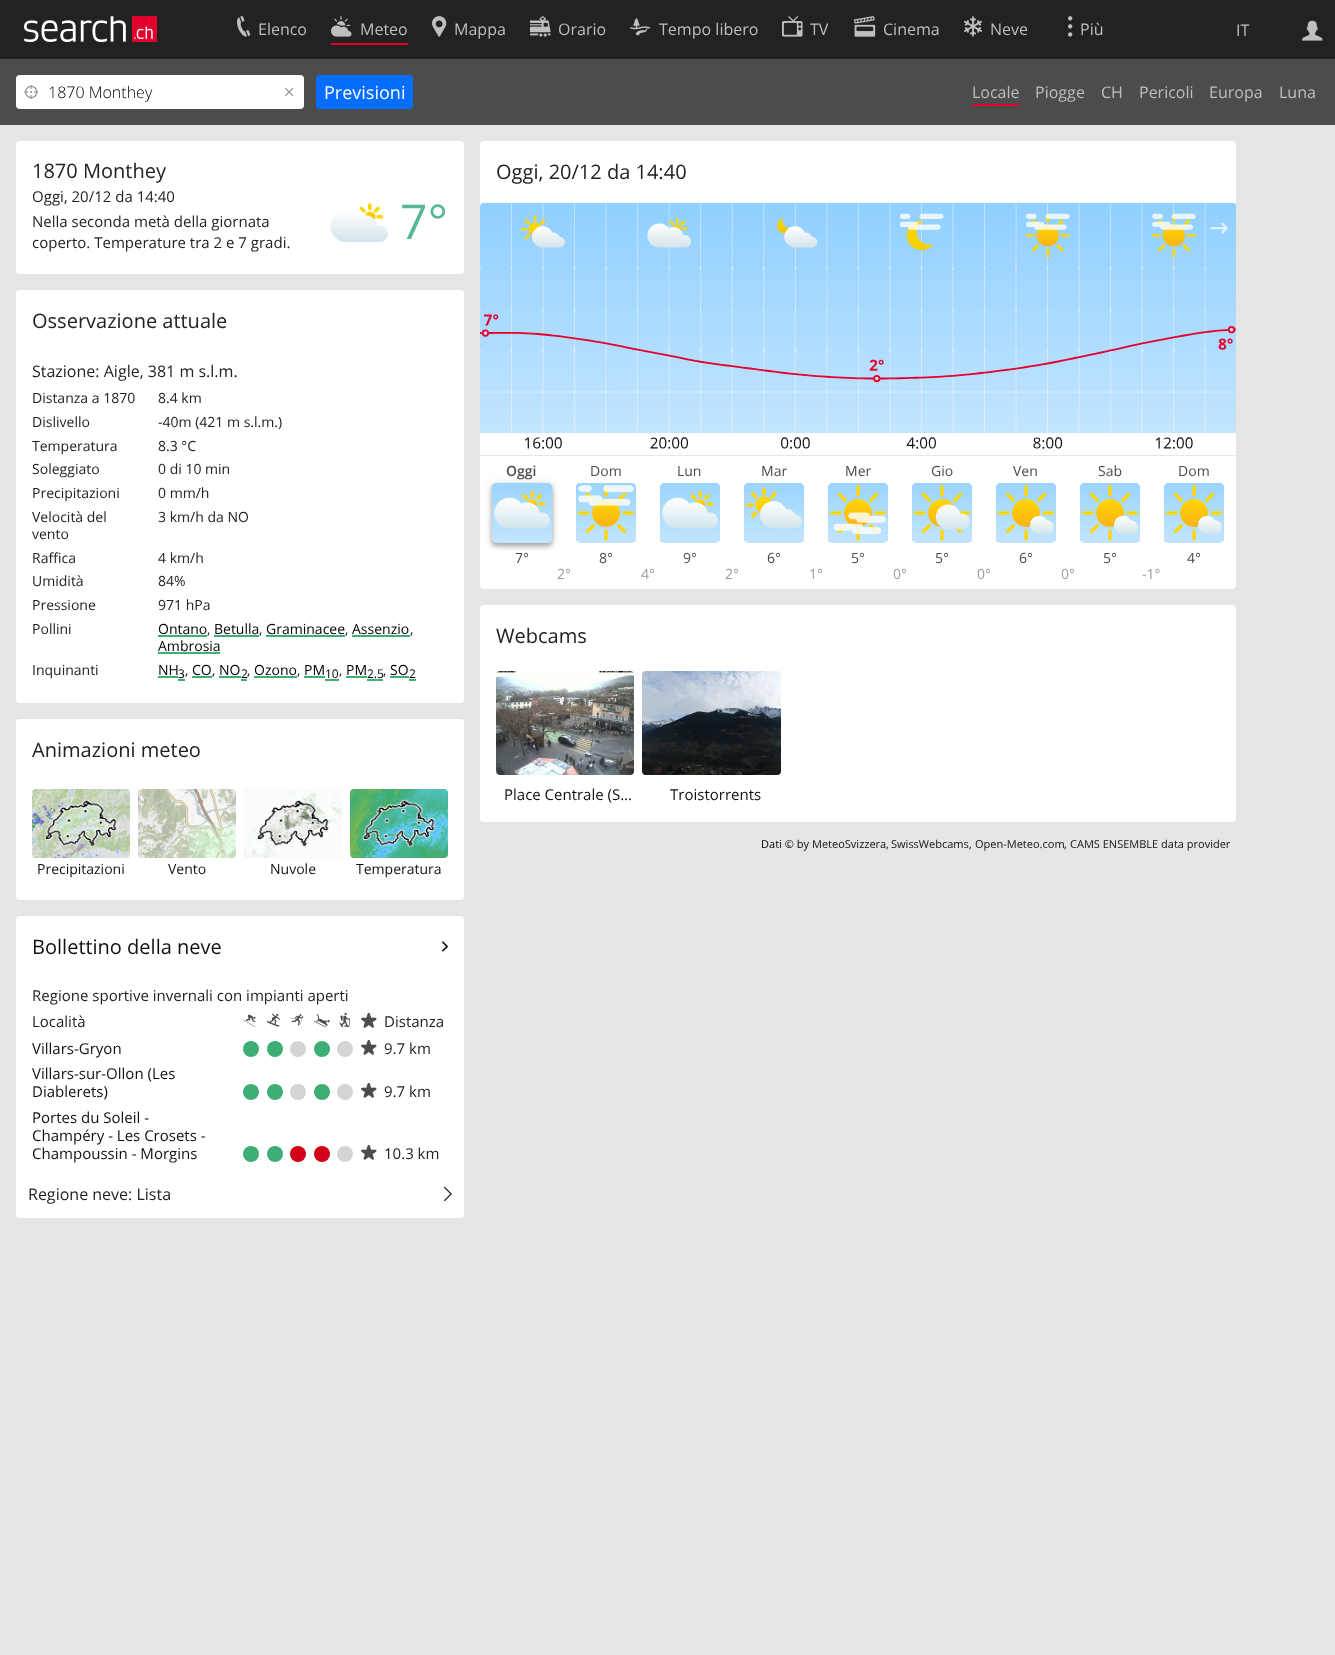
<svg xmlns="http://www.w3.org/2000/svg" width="1335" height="1655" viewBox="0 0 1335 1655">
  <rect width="100%" height="100%" fill="rgb(229,229,229)"/>
  <rect x="0" y="0" width="1335" height="59" fill="rgb(34,34,34)"/>
  <image x="24" y="16" width="133" height="26" href="pic1.png"/>
  <image x="237" y="16" width="14" height="21" href="pic2.png"/>
  <text x="258" y="35" font-family="Open Sans" font-size="16" fill="rgb(191,191,191)">Elenco</text>
  <rect x="331" y="43" width="77" height="2" fill="rgb(228,0,44)"/>
  <image x="331" y="16" width="21" height="21" href="pic3.png"/>
  <text x="360" y="35" font-family="Open Sans" font-size="16" fill="rgb(191,191,191)">Meteo</text>
  <image x="432" y="16" width="15" height="21" href="pic4.png"/>
  <text x="454" y="35" font-family="Open Sans" font-size="16" fill="rgb(191,191,191)">Mappa</text>
  <image x="530" y="16" width="21" height="21" href="pic5.png"/>
  <text x="558" y="35" font-family="Open Sans" font-size="16" fill="rgb(191,191,191)">Orario</text>
  <image x="630" y="17" width="21" height="19" href="pic6.png"/>
  <text x="659" y="35" font-family="Open Sans" font-size="16" fill="rgb(191,191,191)">Tempo libero</text>
  <image x="782" y="16" width="21" height="21" href="pic7.png"/>
  <text x="810" y="35" font-family="Open Sans" font-size="16" fill="rgb(191,191,191)">TV</text>
  <image x="854" y="16" width="22" height="21" href="pic8.png"/>
  <text x="883" y="35" font-family="Open Sans" font-size="16" fill="rgb(191,191,191)">Cinema</text>
  <image x="964" y="16" width="18" height="21" href="pic9.png"/>
  <text x="990" y="35" font-family="Open Sans" font-size="16" fill="rgb(191,191,191)">Neve</text>
  <image x="1068" y="16" width="5" height="21" href="pic10.png"/>
  <g font-family="Open Sans" font-size="16" fill="rgb(191,191,191)">
    <text x="1080" y="35">Più</text>
    <text x="1236" y="36">IT</text>
  </g>
  <image x="1302" y="20" width="21" height="21" href="pic11.png"/>
  <rect x="0" y="59" width="1335" height="66" fill="rgb(76,76,76)"/>
  <rect x="16" y="75" width="288" height="34" rx="4" fill="rgb(255,255,255)"/>
  <image x="24" y="85" width="15" height="14" href="pic12.png"/>
  <text x="48" y="98" font-family="Open Sans" font-size="16" font-weight="300" fill="rgb(0,0,0)">1870 Monthey</text>
  <image x="285" y="88" width="9" height="8" href="pic13.png"/>
  <rect x="316" y="75" width="97" height="34" rx="4" fill="rgb(5,109,255)"/>
  <text x="324" y="99" font-family="Open Sans" font-size="18" fill="rgb(255,255,255)">Previsioni</text>
  <rect x="972" y="104" width="47" height="2" fill="rgb(228,0,44)"/>
  <g font-family="Open Sans" font-size="16" fill="rgb(191,191,191)">
    <text x="972" y="98">Locale</text>
    <text x="1035" y="98">Piogge</text>
    <text x="1101" y="98">CH</text>
    <text x="1139" y="98">Pericoli</text>
    <text x="1209" y="98">Europa</text>
    <text x="1279" y="98">Luna</text>
  </g>
  <rect x="16" y="141" width="448" height="133" rx="4" fill="rgb(255,255,255)"/>
  <text x="32" y="178" font-family="Open Sans" font-size="20" fill="rgb(34,34,34)">1870 Monthey</text>
  <g font-family="Open Sans" font-size="15" fill="rgb(34,34,34)">
    <text>
      <tspan x="32" y="202">Oggi, 20/12 da 14:40</tspan>
      <tspan x="32" y="227">Nella seconda metà della giornata</tspan>
      <tspan x="32" y="248">coperto. Temperature tra 2 e 7 gradi.</tspan>
    </text>
  </g>
  <image x="330" y="203" width="58" height="39" href="pic14.png"/>
  <text x="400" y="239" font-family="Open Sans" font-size="48" fill="rgb(86,183,152)">7°</text>
  <rect x="16" y="290" width="448" height="413" rx="4" fill="rgb(255,255,255)"/>
  <text x="32" y="328" font-family="Open Sans" font-size="20" fill="rgb(34,34,34)">Osservazione attuale</text>
  <text x="32" y="377" font-family="Open Sans" font-size="16" fill="rgb(34,34,34)">Stazione: Aigle, 381 m s.l.m.</text>
  <g font-family="Open Sans" font-size="14" fill="rgb(34,34,34)">
    <text x="32" y="403">Distanza a 1870</text>
    <text x="158" y="403">8.4 km</text>
    <text x="32" y="427">Dislivello</text>
    <text x="158" y="427">-40m (421 m s.l.m.)</text>
    <text x="32" y="451">Temperatura</text>
    <text x="158" y="451">8.3 °C</text>
    <text x="32" y="474">Soleggiato</text>
    <text x="158" y="474">0 di 10 min</text>
    <text x="32" y="498">Precipitazioni</text>
    <text x="158" y="498">0 mm/h</text>
    <text>
      <tspan x="32" y="522">Velocità del</tspan>
      <tspan x="32" y="539">vento</tspan>
    </text>
    <text x="158" y="522">3 km/h da NO</text>
    <text x="32" y="563">Raffica</text>
    <text x="158" y="563">4 km/h</text>
    <text x="32" y="586">Umidità</text>
    <text x="158" y="586">84%</text>
    <text x="32" y="610">Pressione</text>
    <text x="158" y="610">971 hPa</text>
    <text x="32" y="634">Pollini</text>
  </g>
  <text x="158" y="634" font-family="Open Sans" font-size="14" fill="rgb(0,0,0)">Ontano</text>
  <rect x="158" y="635" width="49" height="2" fill="rgb(62,173,118)"/>
  <text x="207" y="634" font-family="Open Sans" font-size="14" fill="rgb(34,34,34)">,</text>
  <text x="214" y="634" font-family="Open Sans" font-size="14" fill="rgb(0,0,0)">Betulla</text>
  <rect x="214" y="635" width="45" height="2" fill="rgb(62,173,118)"/>
  <text x="259" y="634" font-family="Open Sans" font-size="14" fill="rgb(34,34,34)">,</text>
  <text x="266" y="634" font-family="Open Sans" font-size="14" fill="rgb(0,0,0)">Graminacee</text>
  <rect x="266" y="635" width="79" height="2" fill="rgb(62,173,118)"/>
  <text x="345" y="634" font-family="Open Sans" font-size="14" fill="rgb(34,34,34)">,</text>
  <text x="352" y="634" font-family="Open Sans" font-size="14" fill="rgb(0,0,0)">Assenzio</text>
  <rect x="352" y="635" width="58" height="2" fill="rgb(62,173,118)"/>
  <text x="410" y="634" font-family="Open Sans" font-size="14" fill="rgb(34,34,34)">,</text>
  <text x="158" y="651" font-family="Open Sans" font-size="14" fill="rgb(0,0,0)">Ambrosia</text>
  <rect x="158" y="652" width="62" height="2" fill="rgb(62,173,118)"/>
  <text x="32" y="675" font-family="Open Sans" font-size="14" fill="rgb(34,34,34)">Inquinanti</text>
  <text x="158" y="675" font-family="Open Sans" font-size="14" fill="rgb(0,0,0)">NH</text>
  <text x="178" y="678" font-family="Open Sans" font-size="12" fill="rgb(0,0,0)">3</text>
  <rect x="158" y="676" width="20" height="2" fill="rgb(62,173,118)"/>
  <rect x="178" y="679" width="7" height="2" fill="rgb(62,173,118)"/>
  <text x="185" y="675" font-family="Open Sans" font-size="14" fill="rgb(34,34,34)">,</text>
  <text x="192" y="675" font-family="Open Sans" font-size="14" fill="rgb(0,0,0)">CO</text>
  <rect x="192" y="676" width="20" height="2" fill="rgb(62,173,118)"/>
  <text x="212" y="675" font-family="Open Sans" font-size="14" fill="rgb(34,34,34)">,</text>
  <text x="219" y="675" font-family="Open Sans" font-size="14" fill="rgb(0,0,0)">NO</text>
  <text x="241" y="678" font-family="Open Sans" font-size="12" fill="rgb(0,0,0)">2</text>
  <rect x="219" y="676" width="22" height="2" fill="rgb(62,173,118)"/>
  <rect x="241" y="679" width="6" height="2" fill="rgb(62,173,118)"/>
  <text x="247" y="675" font-family="Open Sans" font-size="14" fill="rgb(34,34,34)">,</text>
  <text x="254" y="675" font-family="Open Sans" font-size="14" fill="rgb(0,0,0)">Ozono</text>
  <rect x="254" y="676" width="43" height="2" fill="rgb(62,173,118)"/>
  <text x="297" y="675" font-family="Open Sans" font-size="14" fill="rgb(34,34,34)">,</text>
  <text x="304" y="675" font-family="Open Sans" font-size="14" fill="rgb(0,0,0)">PM</text>
  <text x="325" y="678" font-family="Open Sans" font-size="12" fill="rgb(0,0,0)">10</text>
  <rect x="304" y="676" width="21" height="2" fill="rgb(62,173,118)"/>
  <rect x="325" y="679" width="14" height="2" fill="rgb(62,173,118)"/>
  <text x="339" y="675" font-family="Open Sans" font-size="14" fill="rgb(34,34,34)">,</text>
  <text x="346" y="675" font-family="Open Sans" font-size="14" fill="rgb(0,0,0)">PM</text>
  <text x="367" y="678" font-family="Open Sans" font-size="12" fill="rgb(0,0,0)">2.5</text>
  <rect x="346" y="676" width="21" height="2" fill="rgb(62,173,118)"/>
  <rect x="367" y="679" width="16" height="2" fill="rgb(62,173,118)"/>
  <text x="383" y="675" font-family="Open Sans" font-size="14" fill="rgb(34,34,34)">,</text>
  <text x="390" y="675" font-family="Open Sans" font-size="14" fill="rgb(0,0,0)">SO</text>
  <text x="409" y="678" font-family="Open Sans" font-size="12" fill="rgb(0,0,0)">2</text>
  <rect x="390" y="676" width="19" height="2" fill="rgb(62,173,118)"/>
  <rect x="409" y="679" width="7" height="2" fill="rgb(62,173,118)"/>
  <rect x="16" y="719" width="448" height="181" rx="4" fill="rgb(255,255,255)"/>
  <text x="32" y="757" font-family="Open Sans" font-size="20" fill="rgb(34,34,34)">Animazioni meteo</text>
  <image x="32" y="789" width="98" height="69" href="pic15.png"/>
  <image x="32" y="798" width="66" height="60" href="pic16.png"/>
  <image x="44" y="799" width="74" height="49" href="pic17.png"/>
  <text x="37" y="874" font-family="Open Sans" font-size="14" fill="rgb(17,17,17)">Precipitazioni</text>
  <image x="138" y="789" width="98" height="69" href="pic18.png"/>
  <image x="187" y="822" width="49" height="36" href="pic19.png"/>
  <text x="168" y="874" font-family="Open Sans" font-size="14" fill="rgb(17,17,17)">Vento</text>
  <image x="244" y="789" width="98" height="69" href="pic20.png"/>
  <image x="244" y="789" width="98" height="69" href="pic21.png"/>
  <image x="257" y="800" width="72" height="47" href="pic22.png"/>
  <text x="270" y="874" font-family="Open Sans" font-size="14" fill="rgb(17,17,17)">Nuvole</text>
  <image x="350" y="789" width="98" height="69" href="pic23.png"/>
  <image x="362" y="799" width="74" height="49" href="pic24.png"/>
  <text x="356" y="874" font-family="Open Sans" font-size="14" fill="rgb(17,17,17)">Temperatura</text>
  <rect x="16" y="916" width="448" height="302" rx="4" fill="rgb(255,255,255)"/>
  <text x="32" y="954" font-family="Open Sans" font-size="20" fill="rgb(17,17,17)">Bollettino della neve</text>
  <image x="442" y="941" width="6" height="11" href="pic25.png"/>
  <g font-family="Open Sans" font-size="15" fill="rgb(34,34,34)">
    <text>
      <tspan x="32" y="1001">Regione sportive invernali con impianti aperti</tspan>
      <tspan x="32" y="1027">Località</tspan>
    </text>
  </g>
  <image x="243" y="1014" width="13" height="13" href="pic26.png"/>
  <image x="267" y="1013" width="13" height="14" href="pic27.png"/>
  <image x="290" y="1014" width="14" height="12" href="pic28.png"/>
  <image x="314" y="1014" width="16" height="13" href="pic29.png"/>
  <image x="339" y="1012" width="12" height="16" href="pic30.png"/>
  <image x="361" y="1012" width="16" height="16" href="pic31.png"/>
  <text x="384" y="1027" font-family="Open Sans" font-size="15" fill="rgb(34,34,34)">Distanza</text>
  <text x="32" y="1054" font-family="Open Sans" font-size="15" fill="rgb(17,17,17)">Villars-Gryon</text>
  <circle cx="251" cy="1049" r="8" fill="rgb(62,173,118)"/>
  <circle cx="275" cy="1049" r="8" fill="rgb(62,173,118)"/>
  <circle cx="298" cy="1049" r="8" fill="rgb(212,212,212)"/>
  <circle cx="322" cy="1049" r="8" fill="rgb(62,173,118)"/>
  <circle cx="345" cy="1049" r="8" fill="rgb(212,212,212)"/>
  <image x="361" y="1039" width="16" height="16" href="pic31.png"/>
  <text x="384" y="1054" font-family="Open Sans" font-size="15" fill="rgb(34,34,34)">9.7 km</text>
  <g font-family="Open Sans" font-size="15" fill="rgb(17,17,17)">
    <text>
      <tspan x="32" y="1079">Villars-sur-Ollon (Les</tspan>
      <tspan x="32" y="1097">Diablerets)</tspan>
    </text>
  </g>
  <circle cx="251" cy="1092" r="8" fill="rgb(62,173,118)"/>
  <circle cx="275" cy="1092" r="8" fill="rgb(62,173,118)"/>
  <circle cx="298" cy="1092" r="8" fill="rgb(212,212,212)"/>
  <circle cx="322" cy="1092" r="8" fill="rgb(62,173,118)"/>
  <circle cx="345" cy="1092" r="8" fill="rgb(212,212,212)"/>
  <image x="361" y="1082" width="16" height="16" href="pic31.png"/>
  <text x="384" y="1097" font-family="Open Sans" font-size="15" fill="rgb(34,34,34)">9.7 km</text>
  <g font-family="Open Sans" font-size="15" fill="rgb(17,17,17)">
    <text>
      <tspan x="32" y="1123">Portes du Soleil -</tspan>
      <tspan x="32" y="1141">Champéry - Les Crosets -</tspan>
      <tspan x="32" y="1159">Champoussin - Morgins</tspan>
    </text>
  </g>
  <circle cx="251" cy="1154" r="8" fill="rgb(62,173,118)"/>
  <circle cx="275" cy="1154" r="8" fill="rgb(62,173,118)"/>
  <circle cx="298" cy="1154" r="8" fill="rgb(210,0,25)"/>
  <circle cx="322" cy="1154" r="8" fill="rgb(210,0,25)"/>
  <circle cx="345" cy="1154" r="8" fill="rgb(212,212,212)"/>
  <image x="361" y="1144" width="16" height="16" href="pic31.png"/>
  <text x="384" y="1159" font-family="Open Sans" font-size="15" fill="rgb(34,34,34)">10.3 km</text>
  <text x="28" y="1200" font-family="Open Sans" font-size="16" fill="rgb(34,34,34)">Regione neve: Lista</text>
  <image x="444" y="1186" width="8" height="16" href="pic32.png"/>
  <rect x="480" y="141" width="756" height="448" rx="4" fill="rgb(255,255,255)"/>
  <text x="496" y="179" font-family="Open Sans" font-size="20" fill="rgb(34,34,34)">Oggi, 20/12 da 14:40</text>
  <image x="480" y="203" width="756" height="246" href="pic33.png"/>
  <image x="1210" y="222" width="18" height="12" href="pic34.png"/>
  <rect x="480" y="455" width="756" height="1" fill="rgb(230,230,230)"/>
  <text x="506" y="476" font-family="Open Sans" font-size="14" font-weight="600" fill="rgb(76,76,76)">Oggi</text>
  <rect x="492" y="485" width="60" height="60" rx="4" fill="rgba(0,0,0,0.2)" filter="blur(2px)"/>
  <rect x="492" y="484" width="60" height="60" rx="4" fill="rgba(0,0,0,0.12)" filter="blur(5px)"/>
  <rect x="492" y="487" width="60" height="60" rx="4" fill="rgba(0,0,0,0.14)" filter="blur(2.5px)"/>
  <image x="492" y="483" width="60" height="60" href="pic35.png"/>
  <text x="590" y="476" font-family="Open Sans" font-size="14" fill="rgb(76,76,76)">Dom</text>
  <image x="576" y="483" width="60" height="60" href="pic36.png"/>
  <text x="677" y="476" font-family="Open Sans" font-size="14" fill="rgb(76,76,76)">Lun</text>
  <image x="660" y="483" width="60" height="60" href="pic37.png"/>
  <text x="761" y="476" font-family="Open Sans" font-size="14" fill="rgb(76,76,76)">Mar</text>
  <image x="744" y="483" width="60" height="60" href="pic38.png"/>
  <text x="845" y="476" font-family="Open Sans" font-size="14" fill="rgb(76,76,76)">Mer</text>
  <image x="828" y="483" width="60" height="60" href="pic39.png"/>
  <text x="931" y="476" font-family="Open Sans" font-size="14" fill="rgb(76,76,76)">Gio</text>
  <image x="912" y="483" width="60" height="60" href="pic40.png"/>
  <text x="1013" y="476" font-family="Open Sans" font-size="14" fill="rgb(76,76,76)">Ven</text>
  <image x="996" y="483" width="60" height="60" href="pic41.png"/>
  <text x="1098" y="476" font-family="Open Sans" font-size="14" fill="rgb(76,76,76)">Sab</text>
  <image x="1080" y="483" width="60" height="60" href="pic41.png"/>
  <text x="1178" y="476" font-family="Open Sans" font-size="14" fill="rgb(76,76,76)">Dom</text>
  <image x="1164" y="483" width="60" height="60" href="pic41.png"/>
  <g font-family="Open Sans" font-size="14" fill="rgb(76,76,76)">
    <text x="515" y="563">7°</text>
    <text x="599" y="563">8°</text>
    <text x="683" y="563">9°</text>
    <text x="767" y="563">6°</text>
    <text x="851" y="563">5°</text>
    <text x="935" y="563">5°</text>
    <text x="1019" y="563">6°</text>
    <text x="1103" y="563">5°</text>
    <text x="1187" y="563">4°</text>
  </g>
  <g font-family="Open Sans" font-size="14" fill="rgb(153,153,153)">
    <text x="557" y="579">2°</text>
    <text x="641" y="579">4°</text>
    <text x="725" y="579">2°</text>
    <text x="809" y="579">1°</text>
    <text x="893" y="579">0°</text>
    <text x="977" y="579">0°</text>
    <text x="1061" y="579">0°</text>
    <text x="1142" y="579">-1°</text>
  </g>
  <rect x="480" y="605" width="756" height="217" rx="4" fill="rgb(255,255,255)"/>
  <text x="496" y="643" font-family="Open Sans" font-size="20" fill="rgb(34,34,34)">Webcams</text>
  <image x="496" y="671" width="138" height="104" href="pic42.png"/>
  <text x="504" y="800" font-family="Open Sans" font-size="15" fill="rgb(17,17,17)">Place Centrale (S…</text>
  <image x="642" y="671" width="139" height="104" href="pic43.png"/>
  <text x="670" y="800" font-family="Open Sans" font-size="15" fill="rgb(17,17,17)">Troistorrents</text>
  <text x="761" y="848" font-family="Open Sans" font-size="11" fill="rgb(0,0,0)">Dati © by</text>
  <text x="812" y="848" font-family="Open Sans" font-size="11" fill="rgb(17,17,17)">MeteoSvizzera</text>
  <text x="886" y="848" font-family="Open Sans" font-size="11" fill="rgb(0,0,0)">,</text>
  <text x="891" y="848" font-family="Open Sans" font-size="11" fill="rgb(17,17,17)">SwissWebcams</text>
  <text x="969" y="848" font-family="Open Sans" font-size="11" fill="rgb(0,0,0)">,</text>
  <text x="975" y="848" font-family="Open Sans" font-size="11" fill="rgb(17,17,17)">Open-Meteo.com</text>
  <text x="1064" y="848" font-family="Open Sans" font-size="11" fill="rgb(0,0,0)">,</text>
  <text x="1070" y="848" font-family="Open Sans" font-size="11" fill="rgb(17,17,17)">CAMS ENSEMBLE data provider</text>
</svg>
